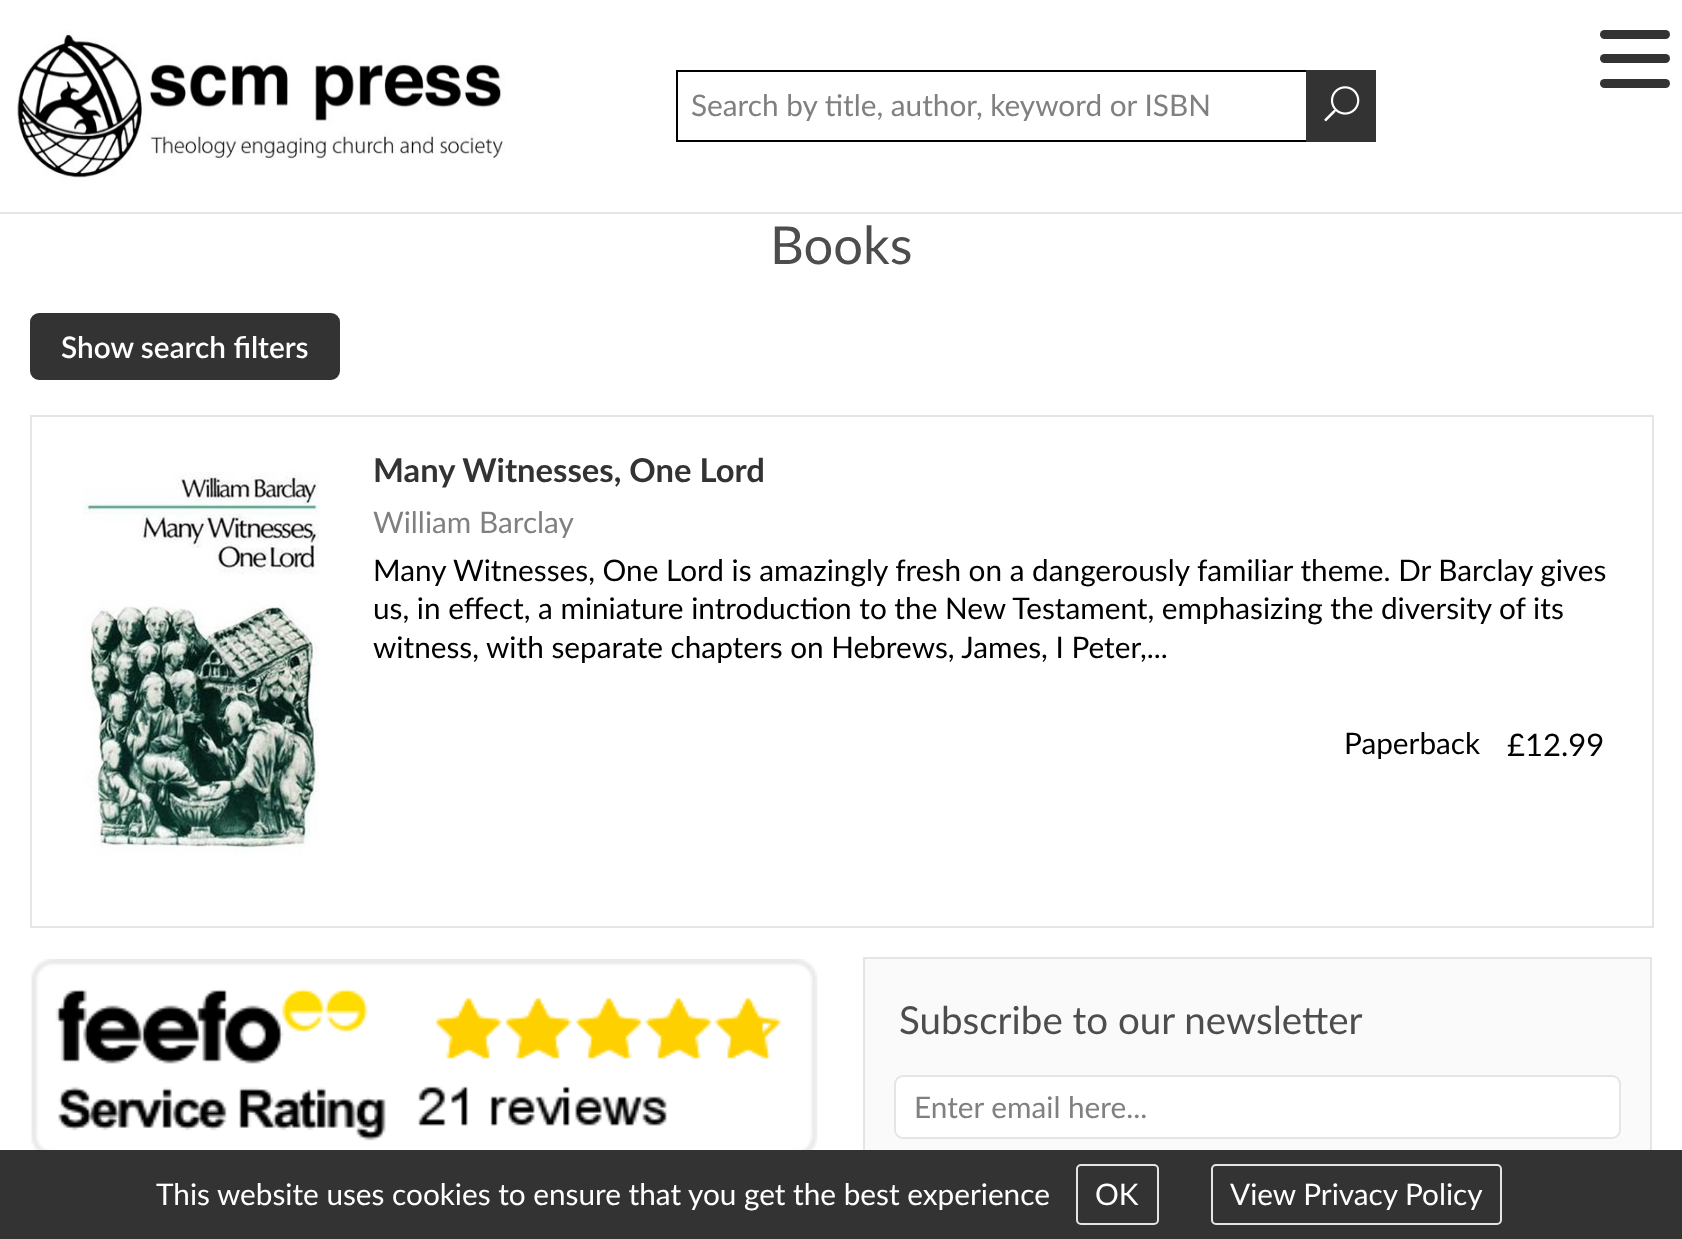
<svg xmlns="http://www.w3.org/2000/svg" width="1682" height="1239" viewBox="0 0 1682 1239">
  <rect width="100%" height="100%" fill="rgb(255,255,255)"/>
  <rect x="0" y="212" width="1682" height="2" fill="rgb(229,229,229)"/>
  <image x="17" y="30" width="488" height="151" href="pic1.png"/>
  <rect x="1600" y="30" width="70" height="9" rx="4.5" fill="rgb(51,51,51)"/>
  <rect x="1600" y="54" width="70" height="9" rx="4.5" fill="rgb(51,51,51)"/>
  <rect x="1600" y="79" width="70" height="9" rx="4.5" fill="rgb(51,51,51)"/>
  <rect x="677" y="71" width="698" height="70" fill="none" stroke="rgb(0,0,0)" stroke-width="2"/>
  <text x="691" y="116" font-family="Lato" font-size="29.75" fill="rgb(128,128,128)">Search by title, author, keyword or ISBN</text>
  <rect x="1306" y="70" width="70" height="72" fill="rgb(51,51,51)"/>
  <image x="1324" y="86" width="36" height="36" href="pic2.png"/>
  <text x="770" y="264" font-family="Lato" font-size="52.5" fill="rgb(77,77,77)">Books</text>
  <rect x="31" y="314" width="308" height="65" rx="8" fill="rgb(51,51,51)" stroke="rgb(51,51,51)" stroke-width="2"/>
  <text x="61" y="358" font-family="Lato" font-size="29.75" font-weight="600" fill="rgb(255,255,255)">Show search filters</text>
  <rect x="31" y="416" width="1622" height="511" fill="none" stroke="rgb(229,229,229)" stroke-width="2"/>
  <image x="83" y="471" width="237" height="383" href="pic3.png"/>
  <text x="373" y="482" font-family="Lato" font-size="32.75" font-weight="bold" fill="rgb(51,51,51)">Many Witnesses, One Lord</text>
  <text x="373" y="533" font-family="Lato" font-size="29.75" fill="rgb(128,128,128)">William Barclay</text>
  <g font-family="Lato" font-size="29.75" fill="rgb(0,0,0)">
    <text>
      <tspan x="373" y="581">Many Witnesses, One Lord is amazingly fresh on a dangerously familiar theme. Dr Barclay gives</tspan>
      <tspan x="373" y="619">us, in effect, a miniature introduction to the New Testament, emphasizing the diversity of its</tspan>
      <tspan x="373" y="658">witness, with separate chapters on Hebrews, James, I Peter,...</tspan>
    </text>
    <text x="1344" y="754">Paperback</text>
  </g>
  <text x="1507" y="756" font-family="Lato" font-size="31" fill="rgb(0,0,0)">£12.99</text>
  <image x="31" y="959" width="787" height="191" href="pic4.png"/>
  <rect x="865" y="959" width="785" height="191" fill="rgb(250,250,250)"/>
  <rect x="864" y="958" width="787" height="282" fill="none" stroke="rgb(229,229,229)" stroke-width="2"/>
  <text x="899" y="1034" font-family="Lato" font-size="38.5" fill="rgb(77,77,77)">Subscribe to our newsletter</text>
  <rect x="895" y="1076" width="725" height="62" rx="8" fill="rgb(255,255,255)" stroke="rgb(229,229,229)" stroke-width="2"/>
  <text x="914" y="1118" font-family="Lato" font-size="29.75" fill="rgb(128,128,128)">Enter email here...</text>
  <rect x="0" y="1150" width="1682" height="89" fill="rgb(51,51,51)"/>
  <text x="156" y="1205" font-family="Lato" font-size="29.75" fill="rgb(255,255,255)">This website uses cookies to ensure that you get the best experience</text>
  <rect x="1077" y="1165" width="81" height="59" rx="4" fill="none" stroke="rgb(229,229,229)" stroke-width="2"/>
  <text x="1095" y="1205" font-family="Lato" font-size="29.75" fill="rgb(255,255,255)">OK</text>
  <rect x="1212" y="1165" width="289" height="59" rx="4" fill="none" stroke="rgb(229,229,229)" stroke-width="2"/>
  <text x="1230" y="1205" font-family="Lato" font-size="29.75" fill="rgb(255,255,255)">View Privacy Policy</text>
</svg>
